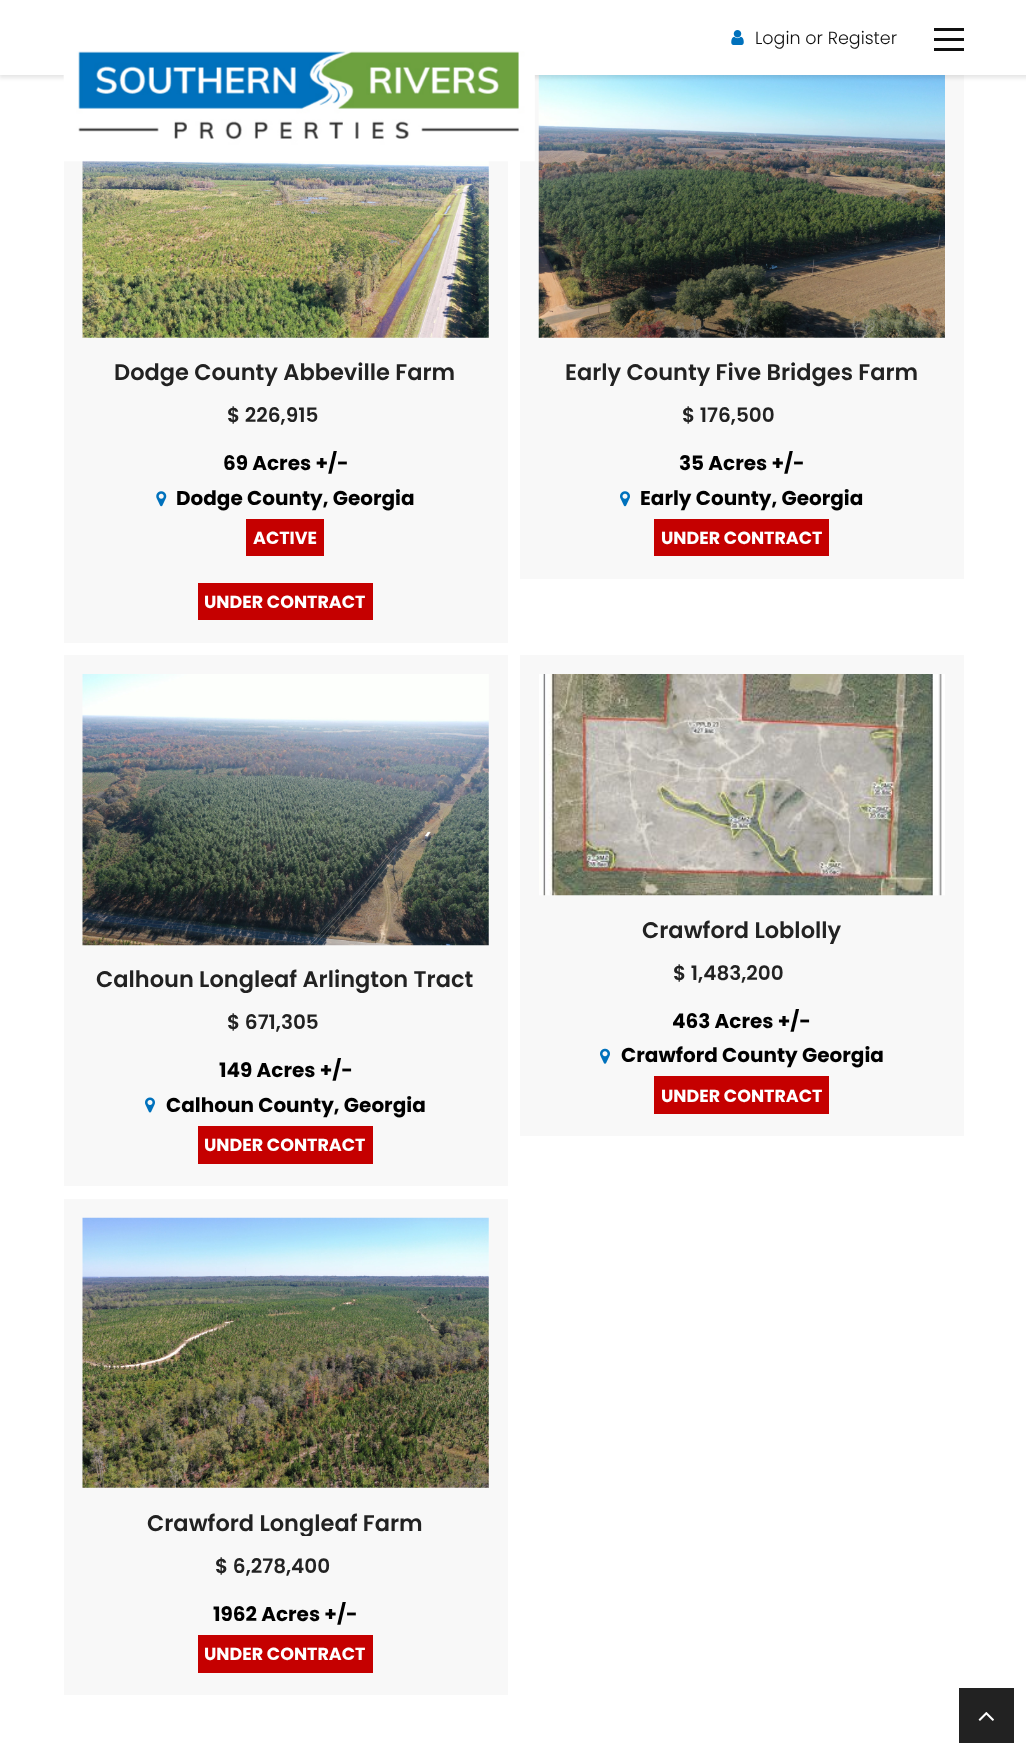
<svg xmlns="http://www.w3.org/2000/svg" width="1026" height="1755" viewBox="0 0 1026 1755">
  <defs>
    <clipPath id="clip1"><rect x="83" y="966" width="406" height="27"/></clipPath>
    <clipPath id="clip2"><rect x="83" y="1509" width="406" height="27"/></clipPath>
  </defs>
  <rect width="100%" height="100%" fill="rgb(255,255,255)"/>
  <rect x="520" y="75" width="444" height="504" fill="rgb(248,248,248)"/>
  <image x="538" y="75" width="407" height="263" href="pic5.png"/>
  <rect x="-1" y="-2" width="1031" height="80" fill="rgba(0,0,0,0.1)" filter="blur(2px)"/>
  <rect x="0" y="0" width="1026" height="75" fill="rgb(255,255,255)"/>
  <image x="731" y="30" width="13" height="15" href="pic1.png"/>
  <text x="755" y="44" font-family="Poppins" font-size="17.5" font-weight="300" fill="rgb(17,17,17)">Login or Register</text>
  <rect x="934" y="28" width="30" height="3" fill="rgb(17,17,17)"/>
  <rect x="934" y="38" width="30" height="3" fill="rgb(17,17,17)"/>
  <rect x="934" y="48" width="30" height="3" fill="rgb(17,17,17)"/>
  <rect x="64" y="160" width="444" height="483" fill="rgb(248,248,248)"/>
  <image x="82" y="160" width="407" height="178" href="pic3.png"/>
  <image x="63" y="51" width="472" height="111" href="pic2.png"/>
  <text x="114" y="380" font-family="Poppins" font-size="22.5" font-weight="600" fill="rgb(34,34,34)">Dodge County Abbeville Farm</text>
  <text x="227" y="422" font-family="Poppins" font-size="20" font-weight="600" fill="rgb(34,34,34)">$ 226,915</text>
  <text x="223" y="470" font-family="Poppins" font-size="20" font-weight="bold" fill="rgb(0,0,0)">69 Acres +/-</text>
  <image x="156" y="491" width="11" height="16" href="pic4.png"/>
  <text x="176" y="505" font-family="Poppins" font-size="20" font-weight="bold" fill="rgb(0,0,0)">Dodge County, Georgia</text>
  <rect x="246" y="519" width="78" height="37" fill="rgb(197,0,0)"/>
  <text x="253" y="544" font-family="Poppins" font-size="17.5" font-weight="bold" fill="rgb(255,255,255)">ACTIVE</text>
  <rect x="198" y="583" width="175" height="37" fill="rgb(197,0,0)"/>
  <text x="204" y="608" font-family="Poppins" font-size="17.5" font-weight="bold" fill="rgb(255,255,255)">UNDER CONTRACT</text>
  <text x="565" y="380" font-family="Poppins" font-size="22.5" font-weight="600" fill="rgb(34,34,34)">Early County Five Bridges Farm</text>
  <text x="682" y="422" font-family="Poppins" font-size="20" font-weight="600" fill="rgb(34,34,34)">$ 176,500</text>
  <text x="679" y="470" font-family="Poppins" font-size="20" font-weight="bold" fill="rgb(0,0,0)">35 Acres +/-</text>
  <image x="620" y="491" width="10" height="16" href="pic6.png"/>
  <text x="640" y="505" font-family="Poppins" font-size="20" font-weight="bold" fill="rgb(0,0,0)">Early County, Georgia</text>
  <rect x="654" y="519" width="175" height="37" fill="rgb(197,0,0)"/>
  <text x="661" y="544" font-family="Poppins" font-size="17.5" font-weight="bold" fill="rgb(255,255,255)">UNDER CONTRACT</text>
  <rect x="64" y="655" width="444" height="531" fill="rgb(248,248,248)"/>
  <image x="82" y="674" width="407" height="272" href="pic7.png"/>
  <g clip-path="url(#clip1)">
    <text x="96" y="987" font-family="Poppins" font-size="22.5" font-weight="600" fill="rgb(34,34,34)">Calhoun Longleaf Arlington Tract</text>
  </g>
  <text x="227" y="1029" font-family="Poppins" font-size="20" font-weight="600" fill="rgb(34,34,34)">$ 671,305</text>
  <text x="219" y="1077" font-family="Poppins" font-size="20" font-weight="bold" fill="rgb(0,0,0)">149 Acres +/-</text>
  <image x="145" y="1097" width="10" height="16" href="pic8.png"/>
  <text x="166" y="1112" font-family="Poppins" font-size="20" font-weight="bold" fill="rgb(0,0,0)">Calhoun County, Georgia</text>
  <rect x="198" y="1126" width="175" height="38" fill="rgb(197,0,0)"/>
  <text x="204" y="1151" font-family="Poppins" font-size="17.5" font-weight="bold" fill="rgb(255,255,255)">UNDER CONTRACT</text>
  <rect x="520" y="655" width="444" height="481" fill="rgb(248,248,248)"/>
  <image x="539" y="674" width="406" height="222" href="pic9.png"/>
  <text x="642" y="938" font-family="Poppins" font-size="22.5" font-weight="600" fill="rgb(34,34,34)">Crawford Loblolly</text>
  <text x="673" y="980" font-family="Poppins" font-size="20" font-weight="600" fill="rgb(34,34,34)">$ 1,483,200</text>
  <text x="672" y="1028" font-family="Poppins" font-size="20" font-weight="bold" fill="rgb(0,0,0)">463 Acres +/-</text>
  <image x="600" y="1048" width="10" height="16" href="pic10.png"/>
  <text x="621" y="1062" font-family="Poppins" font-size="20" font-weight="bold" fill="rgb(0,0,0)">Crawford County Georgia</text>
  <rect x="654" y="1076" width="175" height="38" fill="rgb(197,0,0)"/>
  <text x="661" y="1102" font-family="Poppins" font-size="17.5" font-weight="bold" fill="rgb(255,255,255)">UNDER CONTRACT</text>
  <rect x="64" y="1199" width="444" height="496" fill="rgb(248,248,248)"/>
  <image x="82" y="1217" width="407" height="271" href="pic11.png"/>
  <g clip-path="url(#clip2)">
    <text x="147" y="1531" font-family="Poppins" font-size="22.5" font-weight="600" fill="rgb(34,34,34)">Crawford Longleaf Farm</text>
  </g>
  <text x="215" y="1573" font-family="Poppins" font-size="20" font-weight="600" fill="rgb(34,34,34)">$ 6,278,400</text>
  <text x="213" y="1621" font-family="Poppins" font-size="20" font-weight="bold" fill="rgb(0,0,0)">1962 Acres +/-</text>
  <rect x="198" y="1635" width="175" height="38" fill="rgb(197,0,0)"/>
  <text x="204" y="1660" font-family="Poppins" font-size="17.5" font-weight="bold" fill="rgb(255,255,255)">UNDER CONTRACT</text>
  <rect x="959" y="1688" width="55" height="55" fill="rgb(34,34,34)"/>
  <image x="978" y="1712" width="16" height="9" href="pic12.png"/>
</svg>
